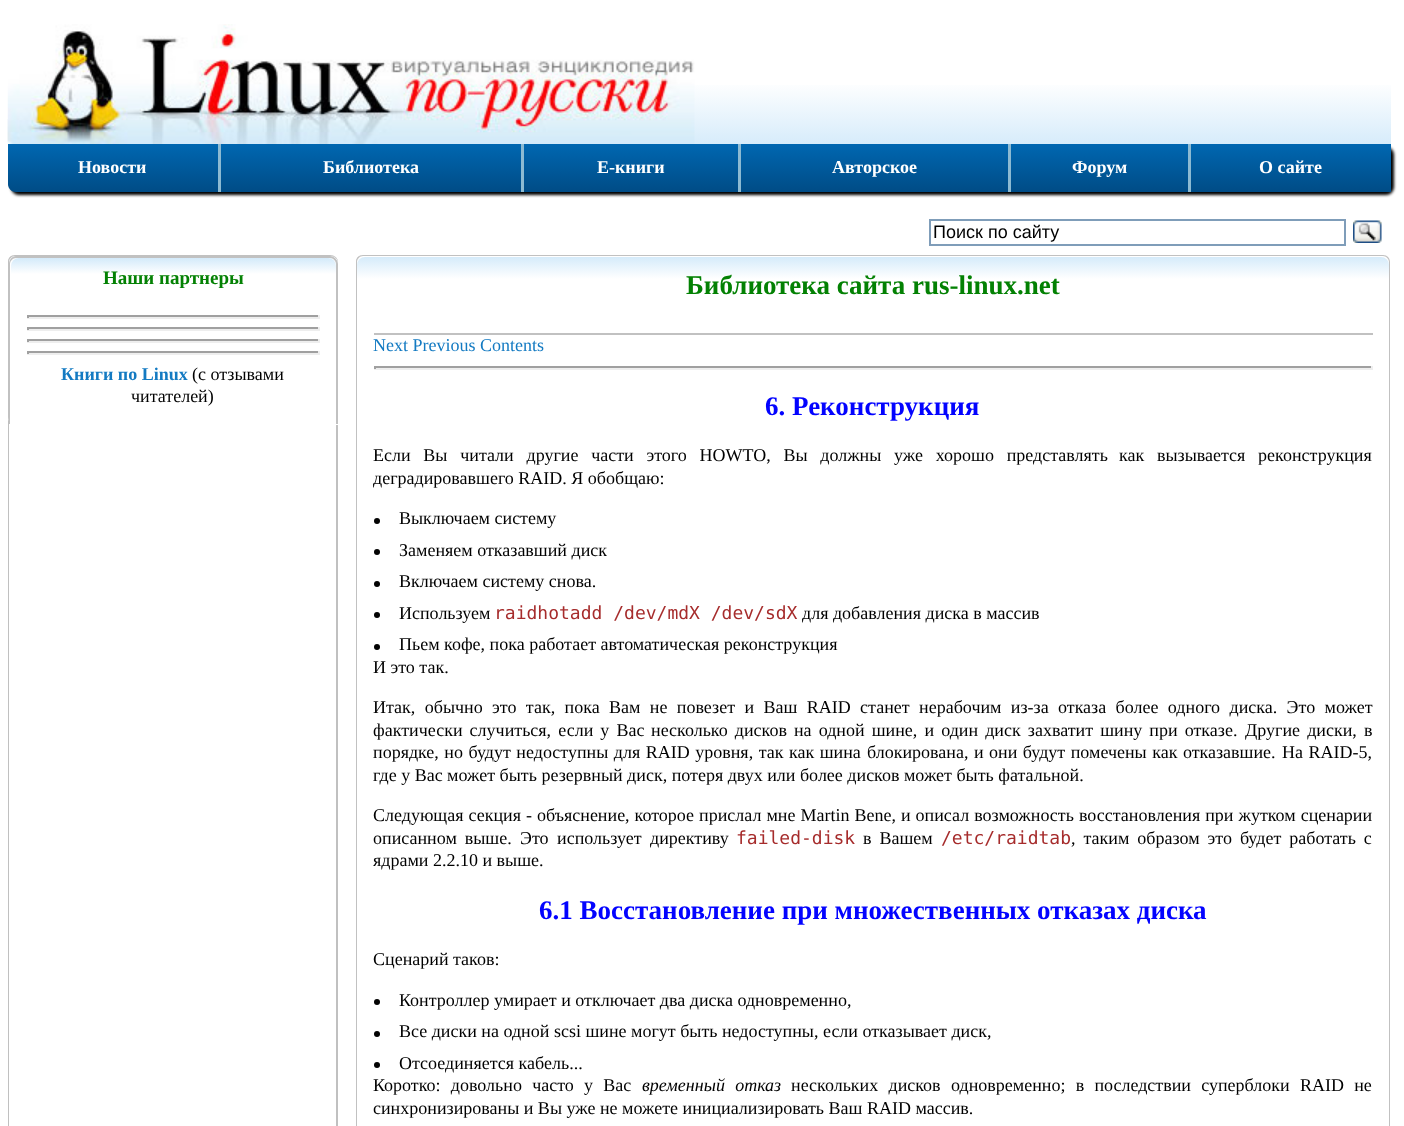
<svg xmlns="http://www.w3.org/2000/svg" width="1404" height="1126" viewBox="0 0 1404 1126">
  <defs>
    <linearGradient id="g1" gradientUnits="userSpaceOnUse" x1="699" y1="150" x2="699" y2="12"><stop offset="0" stop-color="rgb(211,234,250)"/><stop offset="0.5" stop-color="rgb(255,255,255)"/><stop offset="1" stop-color="rgb(255,255,255)"/></linearGradient>
    <linearGradient id="g2" gradientUnits="userSpaceOnUse" x1="113" y1="144" x2="113" y2="192"><stop offset="0" stop-color="rgb(0,103,177)"/><stop offset="1" stop-color="rgb(0,76,134)"/></linearGradient>
    <linearGradient id="g3" gradientUnits="userSpaceOnUse" x1="371" y1="144" x2="371" y2="192"><stop offset="0" stop-color="rgb(0,103,177)"/><stop offset="1" stop-color="rgb(0,76,134)"/></linearGradient>
    <linearGradient id="g4" gradientUnits="userSpaceOnUse" x1="631" y1="144" x2="631" y2="192"><stop offset="0" stop-color="rgb(0,103,177)"/><stop offset="1" stop-color="rgb(0,76,134)"/></linearGradient>
    <linearGradient id="g5" gradientUnits="userSpaceOnUse" x1="875" y1="144" x2="875" y2="192"><stop offset="0" stop-color="rgb(0,103,177)"/><stop offset="1" stop-color="rgb(0,76,134)"/></linearGradient>
    <linearGradient id="g6" gradientUnits="userSpaceOnUse" x1="1100" y1="144" x2="1100" y2="192"><stop offset="0" stop-color="rgb(0,103,177)"/><stop offset="1" stop-color="rgb(0,76,134)"/></linearGradient>
    <linearGradient id="g7" gradientUnits="userSpaceOnUse" x1="1291" y1="144" x2="1291" y2="192"><stop offset="0" stop-color="rgb(0,103,177)"/><stop offset="1" stop-color="rgb(0,76,134)"/></linearGradient>
    <linearGradient id="g8" gradientUnits="userSpaceOnUse" x1="173" y1="258" x2="173" y2="290"><stop offset="0" stop-color="rgb(211,234,250)"/><stop offset="0.5" stop-color="rgb(255,255,255)"/><stop offset="1" stop-color="rgb(255,255,255)"/></linearGradient>
    <linearGradient id="g9" gradientUnits="userSpaceOnUse" x1="873" y1="256" x2="873" y2="302"><stop offset="0" stop-color="rgb(211,234,250)"/><stop offset="0.5" stop-color="rgb(255,255,255)"/><stop offset="1" stop-color="rgb(255,255,255)"/></linearGradient>
  </defs>
  <rect width="100%" height="100%" fill="rgb(255,255,255)"/>
  <rect x="11" y="147" width="1383" height="48" rx="8" fill="rgb(0,0,0)" filter="blur(1.5px)"/>
  <rect x="8" y="85" width="1383" height="59" fill="url(#g1)"/>
  <image x="7" y="24" width="688" height="120" href="pic1.png"/>
  <image x="7" y="119" width="1" height="23" href="pic2.png"/>
  <path d="M8 144H218V192H16C11.5 192 8 188.5 8 184Z" fill="url(#g2)"/>
  <text x="78" y="173" font-family="Liberation Serif" font-size="18" font-weight="bold" fill="rgb(255,255,255)">Новости</text>
  <rect x="221" y="144" width="300" height="48" fill="url(#g3)"/>
  <rect x="218" y="144" width="3" height="48" fill="rgb(140,186,210)"/>
  <text x="323" y="173" font-family="Liberation Serif" font-size="18" font-weight="bold" fill="rgb(255,255,255)">Библиотека</text>
  <rect x="524" y="144" width="214" height="48" fill="url(#g4)"/>
  <rect x="521" y="144" width="3" height="48" fill="rgb(140,186,210)"/>
  <text x="597" y="173" font-family="Liberation Serif" font-size="18" font-weight="bold" fill="rgb(255,255,255)">Е-книги</text>
  <rect x="741" y="144" width="267" height="48" fill="url(#g5)"/>
  <rect x="738" y="144" width="3" height="48" fill="rgb(140,186,210)"/>
  <text x="832" y="173" font-family="Liberation Serif" font-size="18" font-weight="bold" fill="rgb(255,255,255)">Авторское</text>
  <rect x="1011" y="144" width="177" height="48" fill="url(#g6)"/>
  <rect x="1008" y="144" width="3" height="48" fill="rgb(140,186,210)"/>
  <text x="1072" y="173" font-family="Liberation Serif" font-size="18" font-weight="bold" fill="rgb(255,255,255)">Форум</text>
  <rect x="1191" y="144" width="200" height="48" fill="url(#g7)"/>
  <rect x="1188" y="144" width="3" height="48" fill="rgb(140,186,210)"/>
  <text x="1259" y="173" font-family="Liberation Serif" font-size="18" font-weight="bold" fill="rgb(255,255,255)">О сайте</text>
  <rect x="930" y="220" width="415" height="25" fill="none" stroke="rgb(127,157,185)" stroke-width="2"/>
  <text x="933" y="238" font-family="Liberation Sans" font-size="18" fill="rgb(0,0,0)">Поиск по сайту</text>
  <image x="1353" y="220" width="29" height="23" href="pic3.png"/>
  <path d="M15 255H330C334 255 338 258 338 262V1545C338 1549 334 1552 330 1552H15C11 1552 8 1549 8 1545V262C8 258 11 255 15 255ZM15 255H330C333 255 336 258 336 262V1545C336 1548 333 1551 330 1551H15C12 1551 9 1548 9 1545V262C9 258 12 255 15 255Z" fill="rgb(192,192,192)" fill-rule="evenodd"/>
  <rect x="8" y="255" width="330" height="170" rx="8" fill="rgba(255,255,255,0.99)"/>
  <path d="M15 255H330C334 255 338 258 338 262V417C338 421 334 424 330 424H15C11 424 8 421 8 417V262C8 258 11 255 15 255ZM15 256H330C334 256 338 259 338 262V417C338 421 334 424 330 424H15C12 424 9 421 9 417V262C9 259 12 256 15 256Z" fill="rgba(192,192,192,0.99)" fill-rule="evenodd"/>
  <path d="M17 257H330C334.5 257 338 260.5 338 265V425H9V265C9 260.5 12.5 257 17 257Z" fill="rgba(255,255,255,0.99)"/>
  <path d="M16 256H330C334 256 338 260 338 264V424H9V264C9 260 12 256 16 256ZM16 258H330C333 258 336 261 336 264V424H10V264C10 261 13 258 16 258Z" fill="rgba(192,192,192,0.99)" fill-rule="evenodd"/>
  <rect x="11" y="258" width="325" height="32" rx="8" fill="url(#g8)"/>
  <text x="103" y="284" font-family="Liberation Serif" font-size="19" font-weight="bold" fill="rgb(3,129,3)">Наши партнеры</text>
  <rect x="27" y="315" width="293" height="2" fill="rgb(160,160,160)"/>
  <rect x="318" y="315" width="2" height="3" fill="rgb(238,238,238)"/>
  <rect x="27" y="317" width="293" height="2" fill="rgb(238,238,238)"/>
  <rect x="27" y="315" width="2" height="3" fill="rgb(160,160,160)"/>
  <rect x="27" y="327" width="293" height="2" fill="rgb(160,160,160)"/>
  <rect x="318" y="327" width="2" height="3" fill="rgb(238,238,238)"/>
  <rect x="27" y="329" width="293" height="2" fill="rgb(238,238,238)"/>
  <rect x="27" y="327" width="2" height="3" fill="rgb(160,160,160)"/>
  <rect x="27" y="339" width="293" height="2" fill="rgb(160,160,160)"/>
  <rect x="318" y="339" width="2" height="3" fill="rgb(238,238,238)"/>
  <rect x="27" y="341" width="293" height="2" fill="rgb(238,238,238)"/>
  <rect x="27" y="339" width="2" height="3" fill="rgb(160,160,160)"/>
  <rect x="27" y="351" width="293" height="2" fill="rgb(160,160,160)"/>
  <rect x="318" y="351" width="2" height="3" fill="rgb(238,238,238)"/>
  <rect x="27" y="353" width="293" height="2" fill="rgb(238,238,238)"/>
  <rect x="27" y="351" width="2" height="3" fill="rgb(160,160,160)"/>
  <text x="61" y="380" font-family="Liberation Serif" font-size="18" font-weight="bold" fill="rgb(19,122,194)">Книги по Linux</text>
  <g font-family="Liberation Serif" font-size="18" fill="rgb(0,0,0)">
    <text x="192" y="380">(с отзывами</text>
    <text x="131" y="402">читателей)</text>
  </g>
  <path d="M363 255H1383C1387 255 1390 258 1390 262V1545C1390 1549 1387 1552 1383 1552H363C359 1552 356 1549 356 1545V262C356 258 359 255 363 255ZM363 255H1383C1386 255 1389 258 1389 262V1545C1389 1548 1386 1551 1383 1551H363C360 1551 357 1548 357 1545V262C357 258 360 255 363 255Z" fill="rgb(192,192,192)" fill-rule="evenodd"/>
  <path d="M364 255H1383C1387.5 255 1391 258.5 1391 263V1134H356V263C356 258.5 359.5 255 364 255Z" fill="rgba(255,255,255,0.99)"/>
  <path d="M363 255H1383C1387 255 1390 258 1390 262V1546H356V262C356 258 359 255 363 255ZM363 256H1383C1386 256 1389 259 1389 262V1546H357V262C357 259 360 256 363 256Z" fill="rgba(192,192,192,0.99)" fill-rule="evenodd"/>
  <rect x="357" y="257" width="1032" height="45" rx="8" fill="url(#g9)"/>
  <text x="686" y="294" font-family="Liberation Serif" font-size="27" font-weight="bold" fill="rgb(3,129,3)">Библиотека сайта rus-linux.net</text>
  <rect x="374" y="333" width="999" height="2" fill="rgb(193,193,193)"/>
  <text x="373" y="351" font-family="Liberation Serif" font-size="18" fill="rgb(19,122,194)">Next Previous Contents</text>
  <rect x="374" y="366" width="999" height="2" fill="rgb(160,160,160)"/>
  <rect x="1371" y="366" width="2" height="3" fill="rgb(238,238,238)"/>
  <rect x="374" y="368" width="999" height="2" fill="rgb(238,238,238)"/>
  <rect x="374" y="366" width="2" height="3" fill="rgb(160,160,160)"/>
  <text x="765" y="415" font-family="Liberation Serif" font-size="27" font-weight="bold" fill="rgb(3,3,255)">6. Реконструкция</text>
  <g font-family="Liberation Serif" font-size="18" fill="rgb(0,0,0)">
    <text x="373" y="461" word-spacing="8.25">Если Вы читали другие части этого HOWTO, Вы должны уже хорошо представлять</text>
    <text x="1119" y="461" word-spacing="8.25">как вызывается реконструкция</text>
    <text x="373" y="484">деградировавшего RAID. Я обобщаю:</text>
  </g>
  <circle cx="377" cy="521" r="3" fill="rgb(3,3,3)"/>
  <text x="399" y="524" font-family="Liberation Serif" font-size="18" fill="rgb(0,0,0)">Выключаем систему</text>
  <circle cx="377" cy="552" r="3" fill="rgb(3,3,3)"/>
  <text x="399" y="556" font-family="Liberation Serif" font-size="18" fill="rgb(0,0,0)">Заменяем отказавший диск</text>
  <circle cx="377" cy="584" r="3" fill="rgb(3,3,3)"/>
  <text x="399" y="587" font-family="Liberation Serif" font-size="18" fill="rgb(0,0,0)">Включаем систему снова.</text>
  <circle cx="377" cy="615" r="3" fill="rgb(3,3,3)"/>
  <text x="399" y="619" font-family="Liberation Serif" font-size="18" fill="rgb(0,0,0)">Используем</text>
  <text x="494" y="619" font-family="DejaVu Sans Mono" font-size="18" fill="rgb(166,44,44)">raidhotadd /dev/mdX /dev/sdX</text>
  <text x="802" y="619" font-family="Liberation Serif" font-size="18" fill="rgb(0,0,0)">для добавления диска в массив</text>
  <circle cx="377" cy="647" r="3" fill="rgb(3,3,3)"/>
  <g font-family="Liberation Serif" font-size="18" fill="rgb(0,0,0)">
    <text x="399" y="650">Пьем кофе, пока работает автоматическая реконструкция</text>
    <text x="373" y="673">И это так.</text>
    <text x="373" y="713" word-spacing="4.9">Итак, обычно это так, пока Вам не повезет и Ваш RAID станет нерабочим из-за</text>
    <text x="1058" y="713" word-spacing="4.9">отказа более одного диска. Это может</text>
    <text x="373" y="736" word-spacing="2.6">фактически случиться, если у Вас</text>
    <text x="651" y="736" word-spacing="2.6">несколько дисков на одной шине, и один диск захватит шину при отказе.</text>
    <text x="1245" y="736" word-spacing="2.6">Другие диски, в</text>
    <text x="373" y="758" word-spacing="1">порядке, но будут недоступны для RAID уровня, так как шина</text>
    <text x="867" y="758" word-spacing="1">блокирована, и они будут помечены как отказавшие.</text>
    <text x="1282" y="758" word-spacing="1">На RAID-5,</text>
    <text x="373" y="781">где у Вас может быть резервный диск, потеря двух или более дисков может быть фатальной.</text>
    <text>
      <tspan x="373" y="821" word-spacing="0.5">Следующая секция - объяснение, которое прислал мне Martin Bene, и описал возможность восстановления при жутком сценарии</tspan>
      <tspan x="373" y="844" word-spacing="3.5">описанном выше.</tspan>
    </text>
    <text x="520" y="844" word-spacing="4">Это использует директиву</text>
  </g>
  <text x="736" y="844" font-family="DejaVu Sans Mono" font-size="18" fill="rgb(166,44,44)">failed-disk</text>
  <text x="863" y="844" word-spacing="3.5" font-family="Liberation Serif" font-size="18" fill="rgb(0,0,0)">в Вашем</text>
  <text x="941" y="844" font-family="DejaVu Sans Mono" font-size="18" fill="rgb(166,44,44)">/etc/raidtab</text>
  <g font-family="Liberation Serif" font-size="18" fill="rgb(0,0,0)">
    <text x="1071" y="844" word-spacing="3.5">, таким образом это будет работать с</text>
    <text x="373" y="866">ядрами 2.2.10 и выше.</text>
  </g>
  <text x="539" y="919" font-family="Liberation Serif" font-size="27" font-weight="bold" fill="rgb(3,3,255)">6.1 Восстановление при множественных отказах диска</text>
  <text x="373" y="965" font-family="Liberation Serif" font-size="18" fill="rgb(0,0,0)">Сценарий таков:</text>
  <circle cx="377" cy="1002" r="3" fill="rgb(3,3,3)"/>
  <text x="399" y="1006" font-family="Liberation Serif" font-size="18" fill="rgb(0,0,0)">Контроллер умирает и отключает два диска одновременно,</text>
  <circle cx="377" cy="1034" r="3" fill="rgb(3,3,3)"/>
  <text x="399" y="1037" font-family="Liberation Serif" font-size="18" fill="rgb(0,0,0)">Все диски на одной scsi шине могут быть недоступны, если отказывает диск,</text>
  <circle cx="377" cy="1065" r="3" fill="rgb(3,3,3)"/>
  <g font-family="Liberation Serif" font-size="18" fill="rgb(0,0,0)">
    <text x="399" y="1069">Отсоединяется кабель...</text>
    <text x="373" y="1091" word-spacing="5.75">Коротко: довольно часто у Вас</text>
  </g>
  <text x="642" y="1091" word-spacing="5.75" font-family="Liberation Serif" font-size="18" font-style="italic" fill="rgb(0,0,0)">временный отказ</text>
  <g font-family="Liberation Serif" font-size="18" fill="rgb(0,0,0)">
    <text x="791" y="1091" word-spacing="5.75">нескольких дисков</text>
    <text x="951" y="1091" word-spacing="5.75">одновременно; в последствии суперблоки RAID не</text>
    <text x="373" y="1114">синхронизированы и Вы уже не можете инициализировать Ваш RAID массив.</text>
  </g>
</svg>
